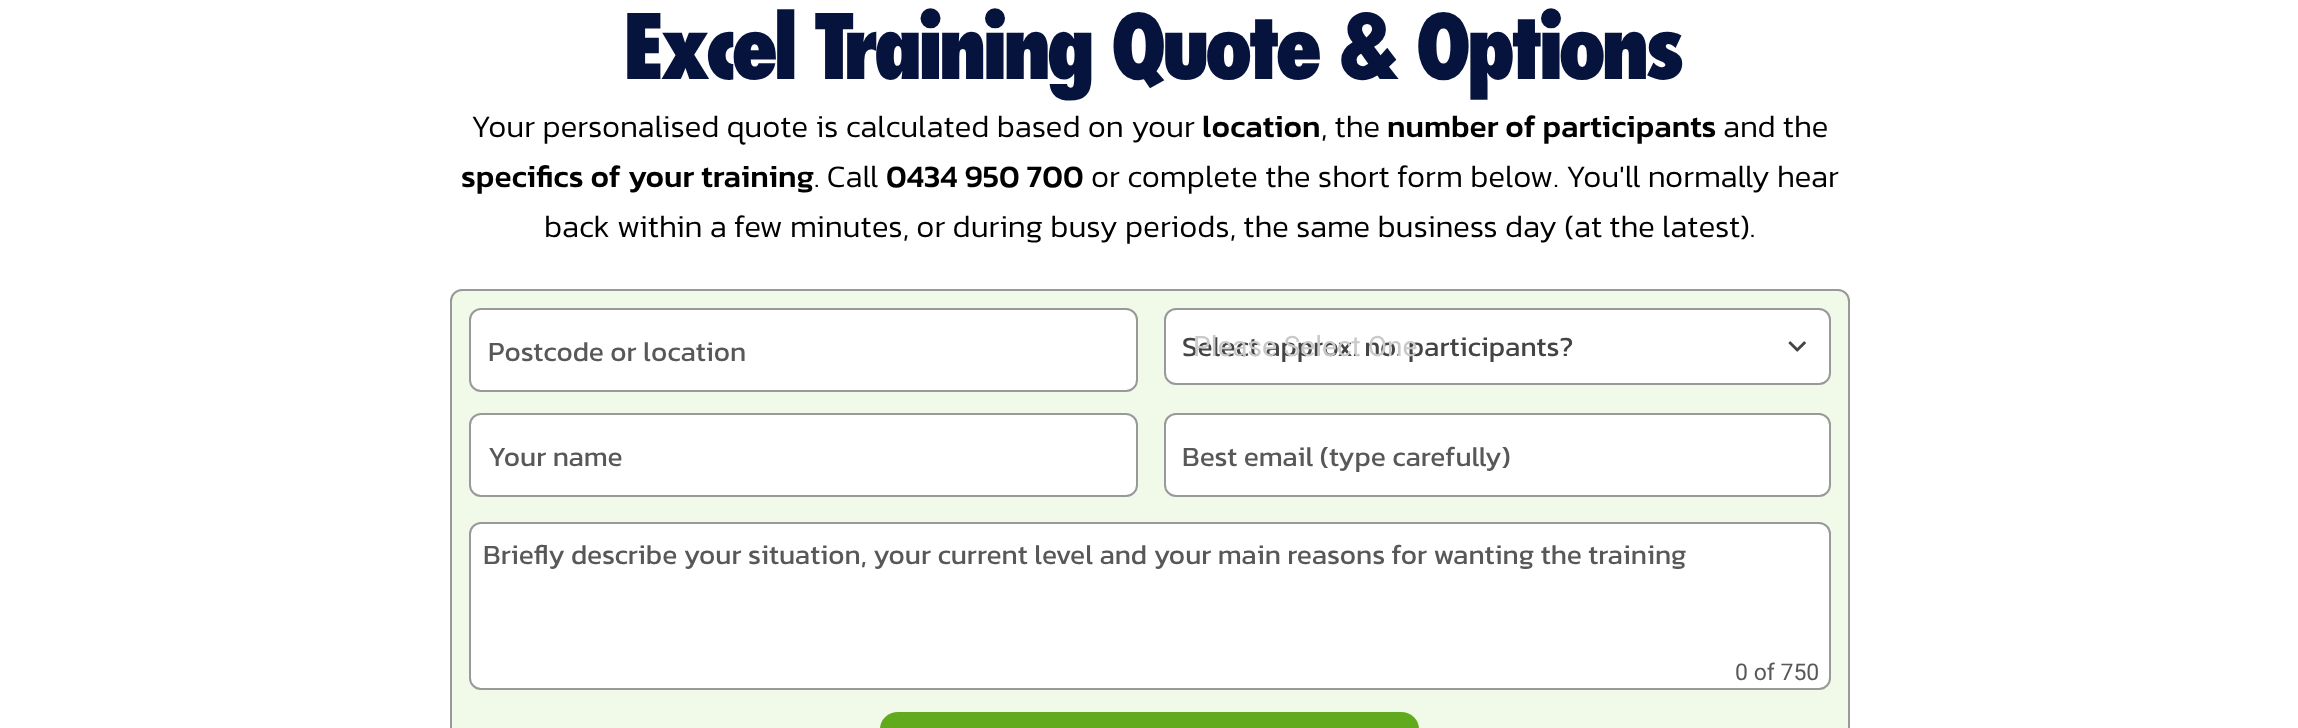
<svg xmlns="http://www.w3.org/2000/svg" width="2298" height="728" viewBox="0 0 2298 728">
  <defs>
    <clipPath id="clip1"><rect x="1183" y="331" width="390" height="31"/></clipPath>
  </defs>
  <rect width="100%" height="100%" fill="rgb(255,255,255)"/>
  <text x="622" y="79" font-family="Futura" font-size="87.5" font-weight="800" letter-spacing="-6.1" fill="rgb(5,19,61)">Excel Training Quote &amp; Options</text>
  <text x="471" y="137" font-family="Kanit" font-size="31.5" font-weight="300" fill="rgb(0,0,0)">Your personalised quote is calculated based on your</text>
  <text x="1202" y="137" font-family="Kanit" font-size="31.5" font-weight="500" fill="rgb(0,0,0)">location</text>
  <text x="1321" y="137" font-family="Kanit" font-size="31.5" font-weight="300" fill="rgb(0,0,0)">, the</text>
  <text x="1387" y="137" font-family="Kanit" font-size="31.5" font-weight="500" fill="rgb(0,0,0)">number of participants</text>
  <text x="1723" y="137" font-family="Kanit" font-size="31.5" font-weight="300" fill="rgb(0,0,0)">and the</text>
  <text x="461" y="187" font-family="Kanit" font-size="31.5" font-weight="500" fill="rgb(0,0,0)">specifics of your training</text>
  <text x="814" y="187" font-family="Kanit" font-size="31.5" font-weight="300" fill="rgb(0,0,0)">. Call</text>
  <text x="886" y="187" font-family="Kanit" font-size="31.5" font-weight="500" fill="rgb(0,0,0)">0434 950 700</text>
  <g font-family="Kanit" font-size="31.5" font-weight="300" fill="rgb(0,0,0)">
    <text x="1091" y="187">or complete the short form below. You'll normally hear</text>
    <text x="544" y="237">back within a few minutes, or during busy periods, the same business day (at the latest).</text>
  </g>
  <rect x="451" y="290" width="1398" height="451" rx="11" fill="rgb(241,249,232)" stroke="rgb(153,153,153)" stroke-width="2"/>
  <rect x="470" y="309" width="667" height="82" rx="11" fill="rgb(255,255,255)" stroke="rgb(153,153,153)" stroke-width="2"/>
  <text x="488" y="361" font-family="Kanit" font-size="28" fill="rgb(88,88,88)">Postcode or location</text>
  <rect x="1165" y="309" width="665" height="75" rx="11" fill="rgb(255,255,255)" stroke="rgb(153,153,153)" stroke-width="2"/>
  <g clip-path="url(#clip1)">
    <text x="1182" y="356" font-family="Kanit" font-size="28" fill="rgb(68,68,68)">Select approx. no. participants?</text>
  </g>
  <text x="1193" y="356" font-family="Roboto" font-size="28" fill="rgb(201,201,201)">Please Select One</text>
  <image x="1788" y="341" width="18" height="11" href="pic1.png"/>
  <rect x="470" y="414" width="667" height="82" rx="11" fill="rgb(255,255,255)" stroke="rgb(153,153,153)" stroke-width="2"/>
  <text x="488" y="466" font-family="Kanit" font-size="28" fill="rgb(88,88,88)">Your name</text>
  <rect x="1165" y="414" width="665" height="82" rx="11" fill="rgb(255,255,255)" stroke="rgb(153,153,153)" stroke-width="2"/>
  <text x="1182" y="466" font-family="Kanit" font-size="28" fill="rgb(88,88,88)">Best email (type carefully)</text>
  <rect x="470" y="523" width="1360" height="166" rx="11" fill="rgb(255,255,255)" stroke="rgb(153,153,153)" stroke-width="2"/>
  <text x="483" y="564" font-family="Kanit" font-size="28" fill="rgb(88,88,88)">Briefly describe your situation, your current level and your main reasons for wanting the training</text>
  <text x="1735" y="680" font-family="Roboto" font-size="23" fill="rgb(88,88,88)">0 of 750</text>
  <rect x="880" y="712" width="539" height="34" rx="18" fill="rgb(97,170,30)"/>
</svg>
